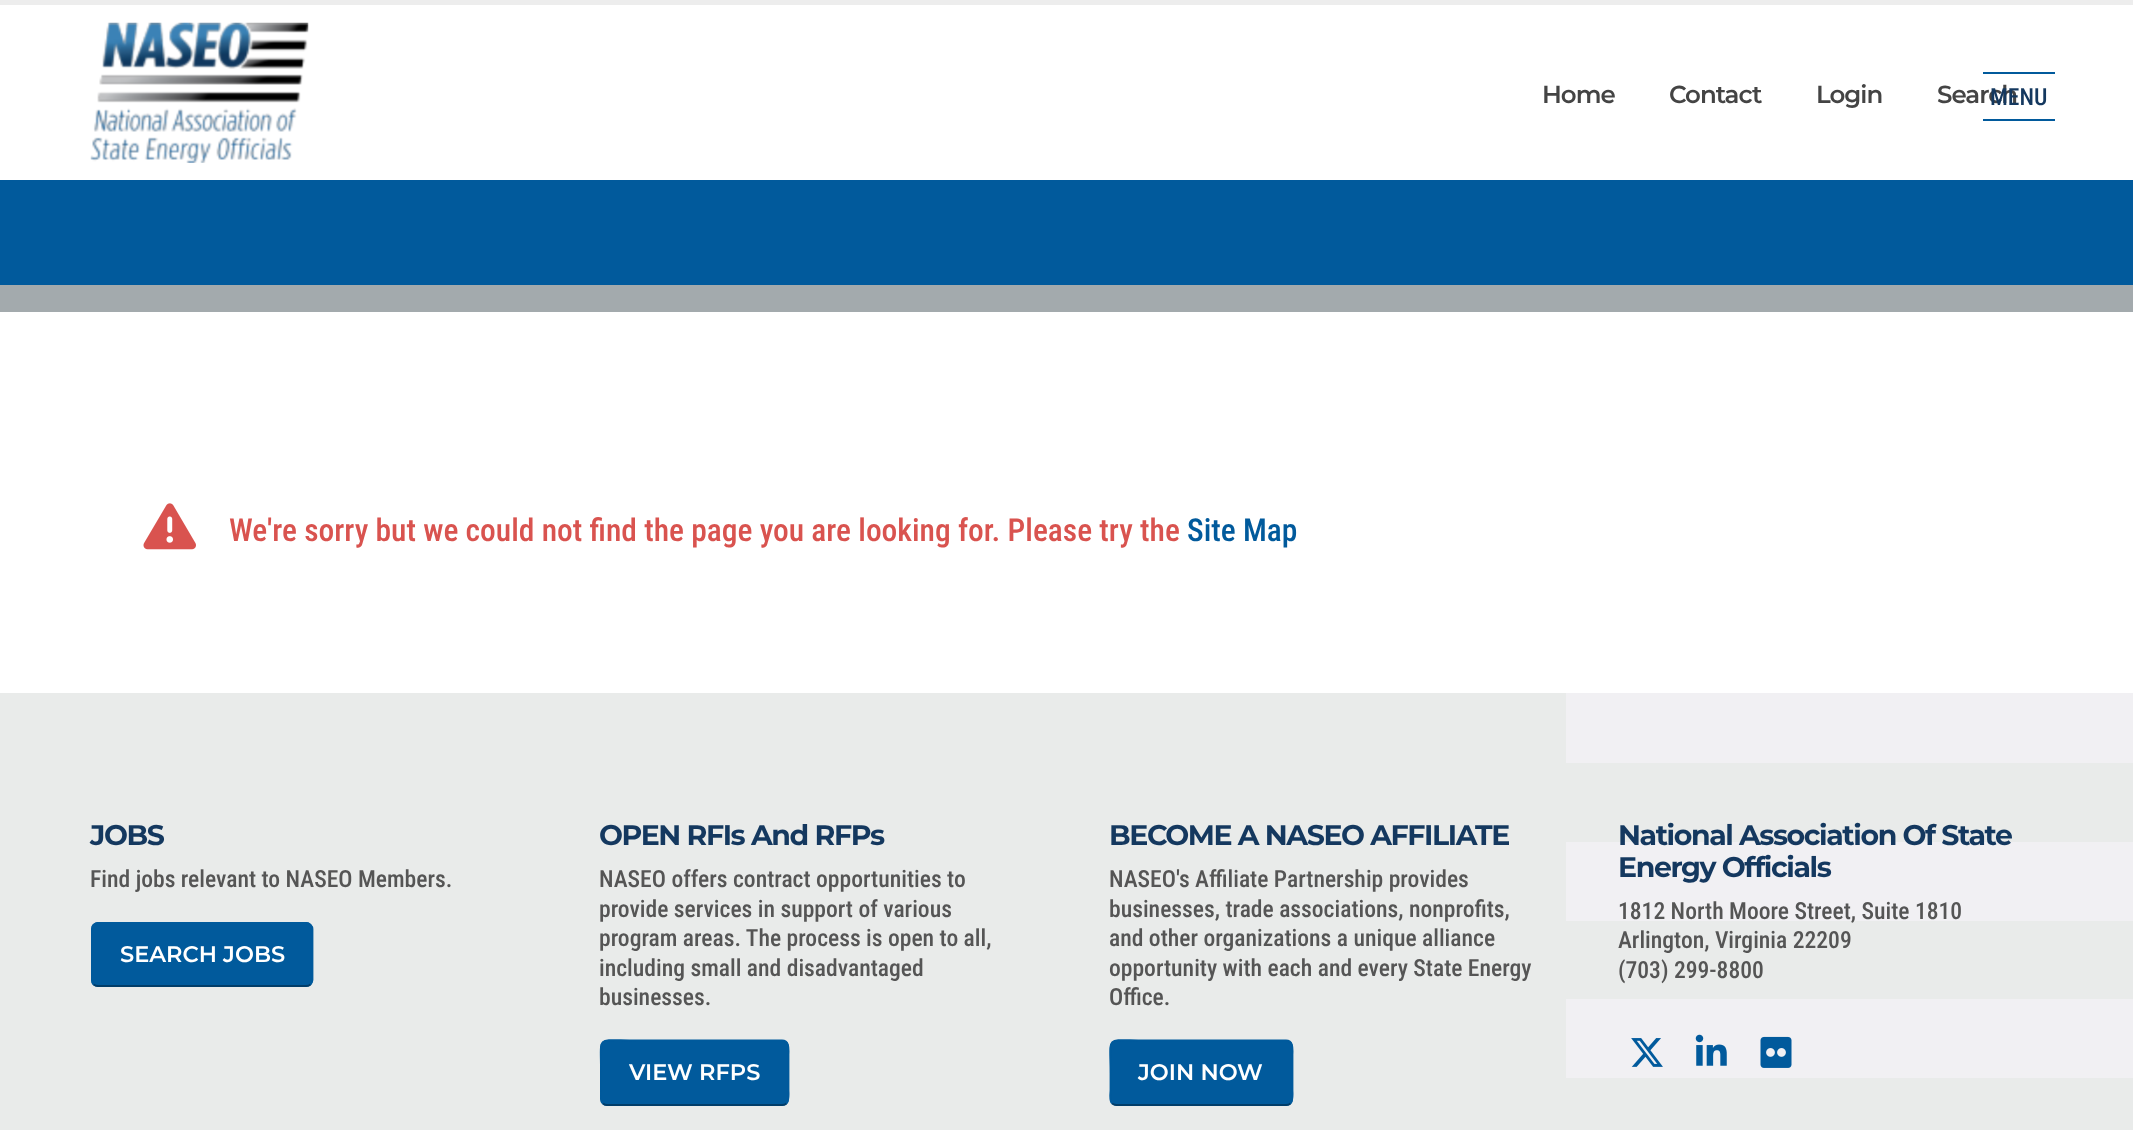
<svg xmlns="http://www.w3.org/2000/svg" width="2133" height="1130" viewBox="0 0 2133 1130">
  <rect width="100%" height="100%" fill="rgb(255,255,255)"/>
  <rect x="0" y="0" width="2133" height="5" fill="rgb(237,237,237)"/>
  <image x="90" y="22" width="219" height="141" href="pic1.png"/>
  <g font-family="Montserrat" font-size="24.5" font-weight="600" letter-spacing="-1" fill="rgb(68,68,68)">
    <text x="1542" y="103">Home</text>
    <text x="1669" y="103">Contact</text>
    <text x="1816" y="103">Login</text>
    <text x="1937" y="103">Search</text>
  </g>
  <rect x="1983" y="72" width="72" height="2" fill="rgb(1,90,156)"/>
  <rect x="1983" y="119" width="72" height="2" fill="rgb(1,90,156)"/>
  <text x="1990" y="105" font-family="Roboto Condensed" font-size="23.6" font-weight="500" fill="rgb(20,56,95)">MENU</text>
  <rect x="0" y="180" width="2133" height="105" fill="rgb(1,90,156)"/>
  <rect x="0" y="285" width="2133" height="27" fill="rgb(163,170,173)"/>
  <image x="143" y="503" width="53" height="47" href="pic2.png"/>
  <text x="229" y="541" font-family="Roboto Condensed" font-size="31.5" font-weight="500" fill="rgb(217,83,79)">We're sorry but we could not find the page you are looking for. Please try the</text>
  <text x="1187" y="541" font-family="Roboto Condensed" font-size="31.5" font-weight="500" fill="rgb(1,90,156)">Site Map</text>
  <rect x="0" y="693" width="2133" height="437" fill="rgb(233,235,234)"/>
  <rect x="1566" y="693" width="567" height="70" fill="rgb(241,240,243)"/>
  <rect x="1566" y="999" width="567" height="79" fill="rgb(241,240,243)"/>
  <rect x="1566" y="842" width="567" height="79" fill="rgb(241,240,243)"/>
  <text x="90" y="845" font-family="Montserrat" font-size="28.4" font-weight="bold" letter-spacing="-1.4" fill="rgb(20,56,95)">JOBS</text>
  <text x="90" y="887" font-family="Roboto Condensed" font-size="23.6" font-weight="500" fill="rgb(85,85,85)">Find jobs relevant to NASEO Members.</text>
  <rect x="91" y="922" width="222" height="65" rx="7" fill="rgb(1,90,156)"/>
  <path d="M310.5 984.5C309.5 985.5 308 986 306 986H98C96.5 986 95 985.5 93.5 984.5" fill="none" stroke="rgb(1,61,105)" stroke-width="1.8"/>
  <path d="M93.5 984.5C92.5 983 92 981.5 92 980V929C92 927.5 92.5 926 93.5 925C95 924 96.5 923 98 923H306C308 923 309.5 924 310.5 925C311.5 926 312.5 927.5 312.5 929V980C312.5 981.5 311.5 983 310.5 984.5" fill="none" stroke="rgb(1,90,156)" stroke-width="1.8"/>
  <text x="120" y="962" font-family="Montserrat" font-size="22.5" font-weight="600" fill="rgb(255,255,255)">SEARCH JOBS</text>
  <text x="599" y="845" font-family="Montserrat" font-size="28.4" font-weight="bold" letter-spacing="-1.4" fill="rgb(20,56,95)">OPEN RFIs And RFPs</text>
  <g font-family="Roboto Condensed" font-size="23.6" font-weight="500" fill="rgb(85,85,85)">
    <text>
      <tspan x="599" y="887">NASEO offers contract opportunities to</tspan>
      <tspan x="599" y="917">provide services in support of various</tspan>
      <tspan x="599" y="946">program areas. The process is open to all,</tspan>
      <tspan x="599" y="976">including small and disadvantaged</tspan>
      <tspan x="599" y="1005">businesses.</tspan>
    </text>
  </g>
  <rect x="600" y="1040" width="189" height="66" rx="7" fill="rgb(1,90,156)"/>
  <path d="M786.5 1103.5C785.5 1104.5 784 1105 782 1105H607C605.5 1105 604 1104.5 603 1103.5" fill="none" stroke="rgb(1,61,105)" stroke-width="1.8"/>
  <path d="M603 1103.5C600 1100 601 1093.5 601 1090V1073C601 1033.5 595 1040.5 636.5 1040.5H782C790 1040.5 788.5 1050.5 788.5 1055V1090C788.5 1093.5 789.5 1100 786.5 1103.5" fill="none" stroke="rgb(1,90,156)" stroke-width="1.8"/>
  <text x="629" y="1080" font-family="Montserrat" font-size="22.5" font-weight="600" fill="rgb(255,255,255)">VIEW RFPS</text>
  <text x="1109" y="845" font-family="Montserrat" font-size="28.4" font-weight="bold" letter-spacing="-1.4" fill="rgb(20,56,95)">BECOME A NASEO AFFILIATE</text>
  <g font-family="Roboto Condensed" font-size="23.6" font-weight="500" fill="rgb(85,85,85)">
    <text>
      <tspan x="1109" y="887">NASEO's Affiliate Partnership provides</tspan>
      <tspan x="1109" y="917">businesses, trade associations, nonprofits,</tspan>
      <tspan x="1109" y="946">and other organizations a unique alliance</tspan>
      <tspan x="1109" y="976">opportunity with each and every State Energy</tspan>
      <tspan x="1109" y="1005">Office.</tspan>
    </text>
  </g>
  <rect x="1110" y="1040" width="183" height="66" rx="7" fill="rgb(1,90,156)"/>
  <path d="M1290.5 1103.5C1289.5 1104.5 1288 1105 1286 1105H1116.5C1115 1105 1113.5 1104.5 1112 1103.5" fill="none" stroke="rgb(1,61,105)" stroke-width="1.8"/>
  <path d="M1112 1103.5C1109 1100 1110.5 1093.5 1110.5 1090V1073C1110.5 1034 1104 1040.5 1145 1040.5H1286C1294 1040.5 1292.5 1050.5 1292.5 1055V1090C1292.5 1093.5 1293.5 1100 1290.5 1103.5" fill="none" stroke="rgb(1,90,156)" stroke-width="1.8"/>
  <text x="1138" y="1080" font-family="Montserrat" font-size="22.5" font-weight="600" fill="rgb(255,255,255)">JOIN NOW</text>
  <g font-family="Montserrat" font-size="28.4" font-weight="bold" letter-spacing="-1.4" fill="rgb(20,56,95)">
    <text>
      <tspan x="1618" y="845">National Association Of State</tspan>
      <tspan x="1618" y="877">Energy Officials</tspan>
    </text>
  </g>
  <g font-family="Roboto Condensed" font-size="23.6" font-weight="500" fill="rgb(85,85,85)">
    <text>
      <tspan x="1618" y="919">1812 North Moore Street, Suite 1810</tspan>
      <tspan x="1618" y="948">Arlington, Virginia 22209</tspan>
      <tspan x="1618" y="978">(703) 299-8800</tspan>
    </text>
  </g>
  <image x="1631" y="1038" width="32" height="29" href="pic3.png"/>
  <image x="1695" y="1034" width="32" height="32" href="pic4.png"/>
  <image x="1760" y="1036" width="32" height="32" href="pic5.png"/>
</svg>
